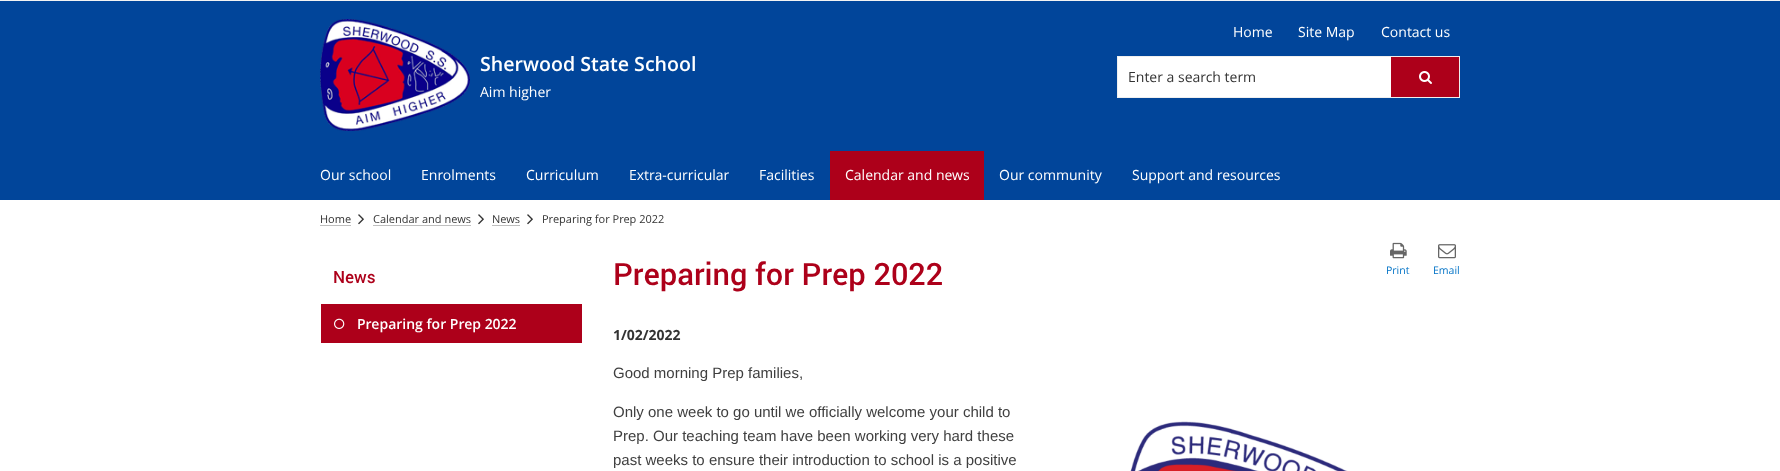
<svg xmlns="http://www.w3.org/2000/svg" width="1780" height="471" viewBox="0 0 1780 471">
  <rect width="100%" height="100%" fill="rgb(255,255,255)"/>
  <rect x="0" y="0" width="1780" height="1" fill="rgb(243,243,243)"/>
  <rect x="0" y="1" width="1780" height="199" fill="rgb(1,69,154)"/>
  <image x="320" y="19" width="150" height="112" href="pic1.png"/>
  <text x="480" y="71" font-family="Open Sans" font-size="19.6" font-weight="600" fill="rgb(255,255,255)">Sherwood State School</text>
  <g font-family="Open Sans" font-size="14" fill="rgb(255,255,255)">
    <text x="480" y="97">Aim higher</text>
    <text x="1233" y="37">Home</text>
    <text x="1298" y="37">Site Map</text>
    <text x="1381" y="37">Contact us</text>
  </g>
  <rect x="1117.5" y="56.5" width="342" height="41" fill="none" stroke="rgb(239,239,239)"/>
  <rect x="1118" y="57" width="273" height="40" fill="rgb(255,255,255)"/>
  <text x="1128" y="82" font-family="Open Sans" font-size="14" fill="rgb(51,51,51)">Enter a search term</text>
  <rect x="1391" y="57" width="68" height="40" fill="rgb(173,0,26)"/>
  <image x="1419" y="71" width="13" height="13" href="pic2.png"/>
  <g font-family="Open Sans" font-size="14" fill="rgb(255,255,255)">
    <text x="320" y="180">Our school</text>
    <text x="421" y="180">Enrolments</text>
    <text x="526" y="180">Curriculum</text>
    <text x="629" y="180">Extra-curricular</text>
    <text x="759" y="180">Facilities</text>
  </g>
  <rect x="830" y="151" width="154" height="49" fill="rgb(173,0,26)"/>
  <g font-family="Open Sans" font-size="14" fill="rgb(255,255,255)">
    <text x="845" y="180">Calendar and news</text>
    <text x="999" y="180">Our community</text>
    <text x="1132" y="180">Support and resources</text>
  </g>
  <text x="320" y="223" font-family="Open Sans" font-size="11" fill="rgb(51,51,51)">Home</text>
  <rect x="320" y="225" width="31" height="1" fill="rgb(191,191,191)"/>
  <image x="358" y="214" width="6" height="11" href="pic3.png"/>
  <text x="373" y="223" font-family="Open Sans" font-size="11" fill="rgb(51,51,51)">Calendar and news</text>
  <rect x="373" y="225" width="98" height="1" fill="rgb(191,191,191)"/>
  <image x="478" y="214" width="6" height="11" href="pic3.png"/>
  <text x="492" y="223" font-family="Open Sans" font-size="11" fill="rgb(51,51,51)">News</text>
  <rect x="492" y="225" width="28" height="1" fill="rgb(191,191,191)"/>
  <image x="527" y="214" width="6" height="11" href="pic3.png"/>
  <text x="542" y="223" font-family="Open Sans" font-size="11" fill="rgb(51,51,51)">Preparing for Prep 2022</text>
  <text x="333" y="283" font-family="Roboto" font-size="17" font-weight="500" fill="rgb(173,0,26)">News</text>
  <rect x="321" y="304" width="261" height="39" fill="rgb(173,0,26)"/>
  <image x="334" y="318" width="11" height="11" href="pic4.png"/>
  <text x="357" y="329" font-family="Open Sans" font-size="14" font-weight="600" fill="rgb(255,255,255)">Preparing for Prep 2022</text>
  <text x="613" y="285" font-family="Roboto" font-size="30.75" font-weight="500" fill="rgb(173,0,26)">Preparing for Prep 2022</text>
  <image x="1390" y="242" width="17" height="17" href="pic5.png"/>
  <text x="1386" y="274" font-family="Open Sans" font-size="10.5" fill="rgb(0,114,198)">Print</text>
  <image x="1438" y="244" width="18" height="15" href="pic6.png"/>
  <text x="1433" y="274" font-family="Open Sans" font-size="10.5" fill="rgb(0,114,198)">Email</text>
  <text x="613" y="340" font-family="Open Sans" font-size="14" font-weight="bold" fill="rgb(51,51,51)">1/02/2022</text>
  <g font-family="Liberation Sans" font-size="15" fill="rgb(63,63,63)">
    <text x="613" y="378">Good morning Prep families,</text>
    <text>
      <tspan x="613" y="417">Only one week to go until we officially welcome your child to</tspan>
      <tspan x="613" y="441">Prep. Our teaching team have been working very hard these</tspan>
      <tspan x="613" y="465">past weeks to ensure their introduction to school is a positive</tspan>
    </text>
  </g>
  <image x="1130" y="421" width="218" height="50" href="pic7.png"/>
</svg>
